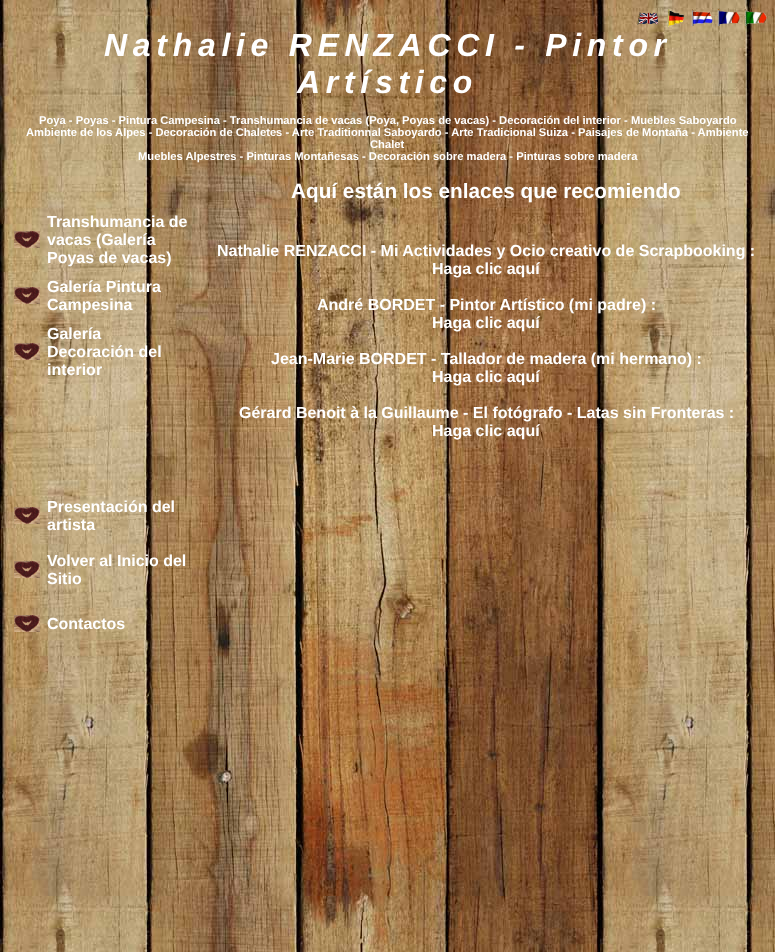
<svg xmlns="http://www.w3.org/2000/svg" width="775" height="952" viewBox="0 0 775 952">
  <rect width="100%" height="100%" fill="rgb(255,255,255)"/>
  <image x="0" y="0" width="775" height="952" href="pic1.png"/>
  <image x="637" y="12" width="22" height="13" href="pic2.png"/>
  <image x="667" y="9" width="18" height="18" href="pic3.png"/>
  <image x="691" y="9" width="22" height="17" href="pic4.png"/>
  <image x="717" y="9" width="23" height="17" href="pic5.png"/>
  <image x="744" y="9" width="23" height="17" href="pic6.png"/>
  <g font-family="Liberation Sans" font-size="32" font-weight="bold" font-style="italic" letter-spacing="5.7" fill="rgb(255,255,255)">
    <text x="104" y="56">Nathalie RENZACCI - Pintor</text>
    <text x="297" y="93">Artístico</text>
  </g>
  <g font-family="Liberation Sans" font-size="11.2" font-weight="bold" fill="rgb(255,255,255)">
    <text x="39" y="124">Poya - Poyas - Pintura Campesina - Transhumancia de vacas (Poya, Poyas de vacas) - Decoración del interior - Muebles Saboyardo</text>
    <text x="26" y="136">Ambiente de los Alpes - Decoración de Chaletes - Arte Traditionnal Saboyardo - Arte Tradicional Suiza - Paisajes de Montaña - Ambiente</text>
    <text x="370" y="148">Chalet</text>
    <text x="138" y="160">Muebles Alpestres - Pinturas Montañesas - Decoración sobre madera - Pinturas sobre madera</text>
  </g>
  <image x="14" y="231" width="26" height="17" href="pic7.png"/>
  <g font-family="Liberation Sans" font-size="16" font-weight="bold" fill="rgb(255,255,255)">
    <text>
      <tspan x="47" y="227">Transhumancia de</tspan>
      <tspan x="47" y="245">vacas (Galería</tspan>
      <tspan x="47" y="263">Poyas de vacas)</tspan>
    </text>
  </g>
  <image x="14" y="287" width="26" height="17" href="pic7.png"/>
  <g font-family="Liberation Sans" font-size="16" font-weight="bold" fill="rgb(255,255,255)">
    <text>
      <tspan x="47" y="292">Galería Pintura</tspan>
      <tspan x="47" y="310">Campesina</tspan>
    </text>
  </g>
  <image x="14" y="343" width="26" height="17" href="pic7.png"/>
  <g font-family="Liberation Sans" font-size="16" font-weight="bold" fill="rgb(255,255,255)">
    <text>
      <tspan x="47" y="339">Galería</tspan>
      <tspan x="47" y="357">Decoración del</tspan>
      <tspan x="47" y="375">interior</tspan>
    </text>
  </g>
  <image x="14" y="507" width="26" height="17" href="pic7.png"/>
  <g font-family="Liberation Sans" font-size="16" font-weight="bold" fill="rgb(255,255,255)">
    <text>
      <tspan x="47" y="512">Presentación del</tspan>
      <tspan x="47" y="530">artista</tspan>
    </text>
  </g>
  <image x="14" y="561" width="26" height="17" href="pic7.png"/>
  <g font-family="Liberation Sans" font-size="16" font-weight="bold" fill="rgb(255,255,255)">
    <text>
      <tspan x="47" y="566">Volver al Inicio del</tspan>
      <tspan x="47" y="584">Sitio</tspan>
    </text>
  </g>
  <image x="14" y="615" width="26" height="17" href="pic7.png"/>
  <text x="47" y="629" font-family="Liberation Sans" font-size="16" font-weight="bold" fill="rgb(255,255,255)">Contactos</text>
  <text x="291" y="198" font-family="Liberation Sans" font-size="20.75" font-weight="bold" fill="rgb(255,255,255)">Aquí están los enlaces que recomiendo</text>
  <g font-family="Liberation Sans" font-size="16" font-weight="bold" fill="rgb(255,255,255)">
    <text x="217" y="256">Nathalie RENZACCI - Mi Actividades y Ocio creativo de Scrapbooking :</text>
    <text x="432" y="274">Haga clic aquí</text>
    <text x="317" y="310">André BORDET - Pintor Artístico (mi padre) :</text>
    <text x="432" y="328">Haga clic aquí</text>
    <text x="271" y="364">Jean-Marie BORDET - Tallador de madera (mi hermano) :</text>
    <text x="432" y="382">Haga clic aquí</text>
    <text x="239" y="418">Gérard Benoit à la Guillaume - El fotógrafo - Latas sin Fronteras :</text>
    <text x="432" y="436">Haga clic aquí</text>
  </g>
</svg>
